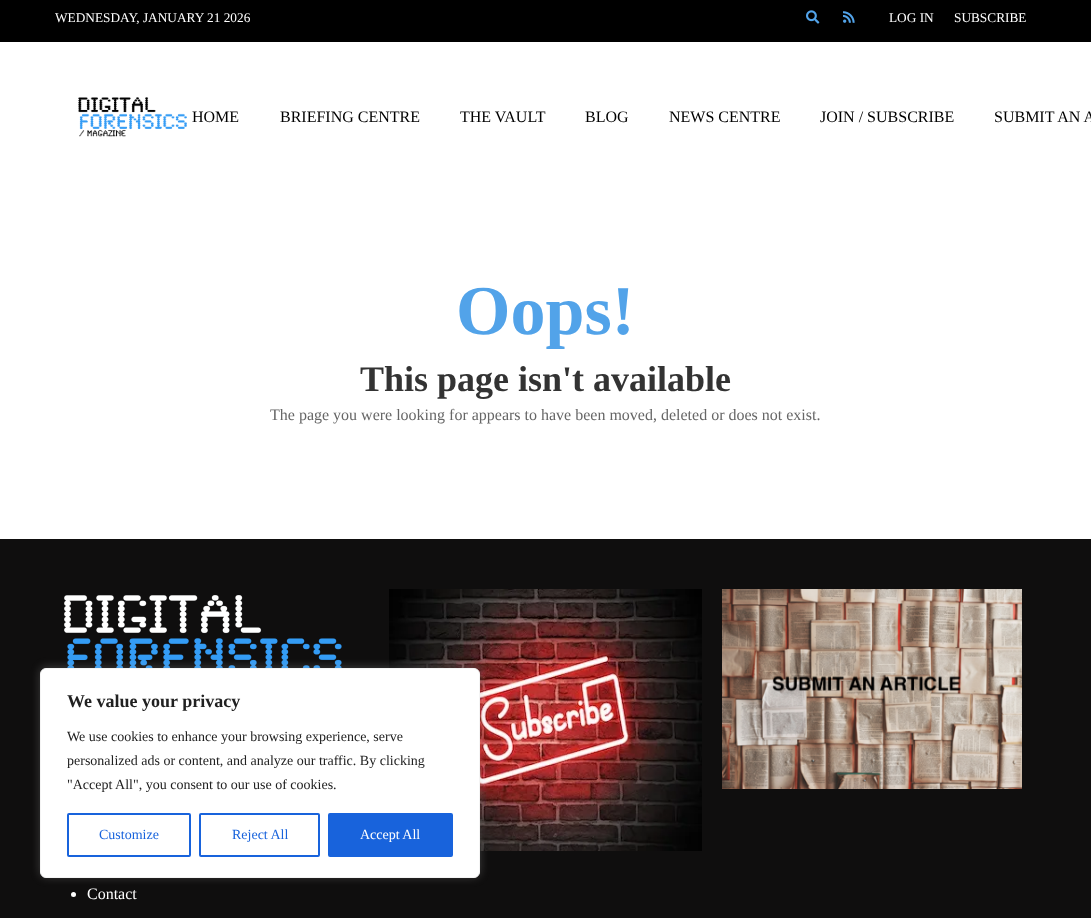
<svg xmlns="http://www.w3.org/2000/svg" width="1091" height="918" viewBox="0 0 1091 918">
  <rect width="100%" height="100%" fill="rgb(255,255,255)"/>
  <rect x="0" y="0" width="1091" height="42" fill="rgb(0,0,0)"/>
  <text x="55" y="22" font-family="Liberation Serif" font-size="13.3" fill="rgb(255,255,255)">WEDNESDAY, JANUARY 21 2026</text>
  <image x="806" y="10" width="14" height="14" href="pic1.png"/>
  <image x="843" y="11" width="12" height="12" href="pic2.png"/>
  <g font-family="Liberation Serif" font-size="13.3" fill="rgb(255,255,255)">
    <text x="889" y="22">LOG IN</text>
    <text x="954" y="22">SUBSCRIBE</text>
  </g>
  <image x="78" y="97" width="109" height="40" href="pic3.png"/>
  <g font-family="Liberation Serif" font-size="16" fill="rgb(0,0,0)">
    <text x="192" y="122">HOME</text>
    <text x="280" y="122">BRIEFING CENTRE</text>
    <text x="460" y="122">THE VAULT</text>
    <text x="585" y="122">BLOG</text>
    <text x="669" y="122">NEWS CENTRE</text>
    <text x="820" y="122">JOIN / SUBSCRIBE</text>
    <text x="994" y="122">SUBMIT AN A</text>
  </g>
  <text x="456" y="334" font-family="Liberation Serif" font-size="70" font-weight="bold" fill="rgb(82,163,233)">Oops!</text>
  <text x="360" y="391" font-family="Liberation Serif" font-size="36" font-weight="bold" fill="rgb(51,51,51)">This page isn't available</text>
  <text x="270" y="420" font-family="Liberation Serif" font-size="16" fill="rgb(102,102,102)">The page you were looking for appears to have been moved, deleted or does not exist.</text>
  <rect x="0" y="539" width="1091" height="379" fill="rgb(15,14,14)"/>
  <image x="389" y="589" width="313" height="262" href="pic4.png"/>
  <image x="722" y="589" width="300" height="200" href="pic5.png"/>
  <image x="64" y="595" width="278" height="73" href="pic6.png"/>
  <circle cx="73.5" cy="894.5" r="2.5" fill="rgb(255,255,255)"/>
  <text x="87" y="899" font-family="Liberation Serif" font-size="16" fill="rgb(255,255,255)">Contact</text>
  <rect x="40" y="667" width="440" height="210" rx="6" fill="rgba(172,171,171,0.3)" filter="blur(5px)"/>
  <rect x="40.5" y="668.5" width="439" height="209" rx="5.5" fill="rgb(255,255,255)" stroke="rgb(244,244,244)"/>
  <text x="67" y="707" font-family="Liberation Serif" font-size="18" font-weight="bold" fill="rgb(33,33,33)">We value your privacy</text>
  <g font-family="Liberation Serif" font-size="14" fill="rgb(33,33,33)">
    <text>
      <tspan x="67" y="741">We use cookies to enhance your browsing experience, serve</tspan>
      <tspan x="67" y="765">personalized ads or content, and analyze our traffic. By clicking</tspan>
      <tspan x="67" y="789">"Accept All", you consent to our use of cookies.</tspan>
    </text>
  </g>
  <rect x="68" y="814" width="122" height="42" rx="1" fill="none" stroke="rgb(24,99,220)" stroke-width="2"/>
  <text x="99" y="839" font-family="Liberation Serif" font-size="14" fill="rgb(24,99,220)">Customize</text>
  <rect x="200" y="814" width="119" height="42" rx="1" fill="none" stroke="rgb(24,99,220)" stroke-width="2"/>
  <text x="232" y="839" font-family="Liberation Serif" font-size="14" fill="rgb(24,99,220)">Reject All</text>
  <rect x="329" y="814" width="123" height="42" rx="1" fill="rgb(24,99,220)" stroke="rgb(24,99,220)" stroke-width="2"/>
  <text x="360" y="839" font-family="Liberation Serif" font-size="14" fill="rgb(255,255,255)">Accept All</text>
</svg>
